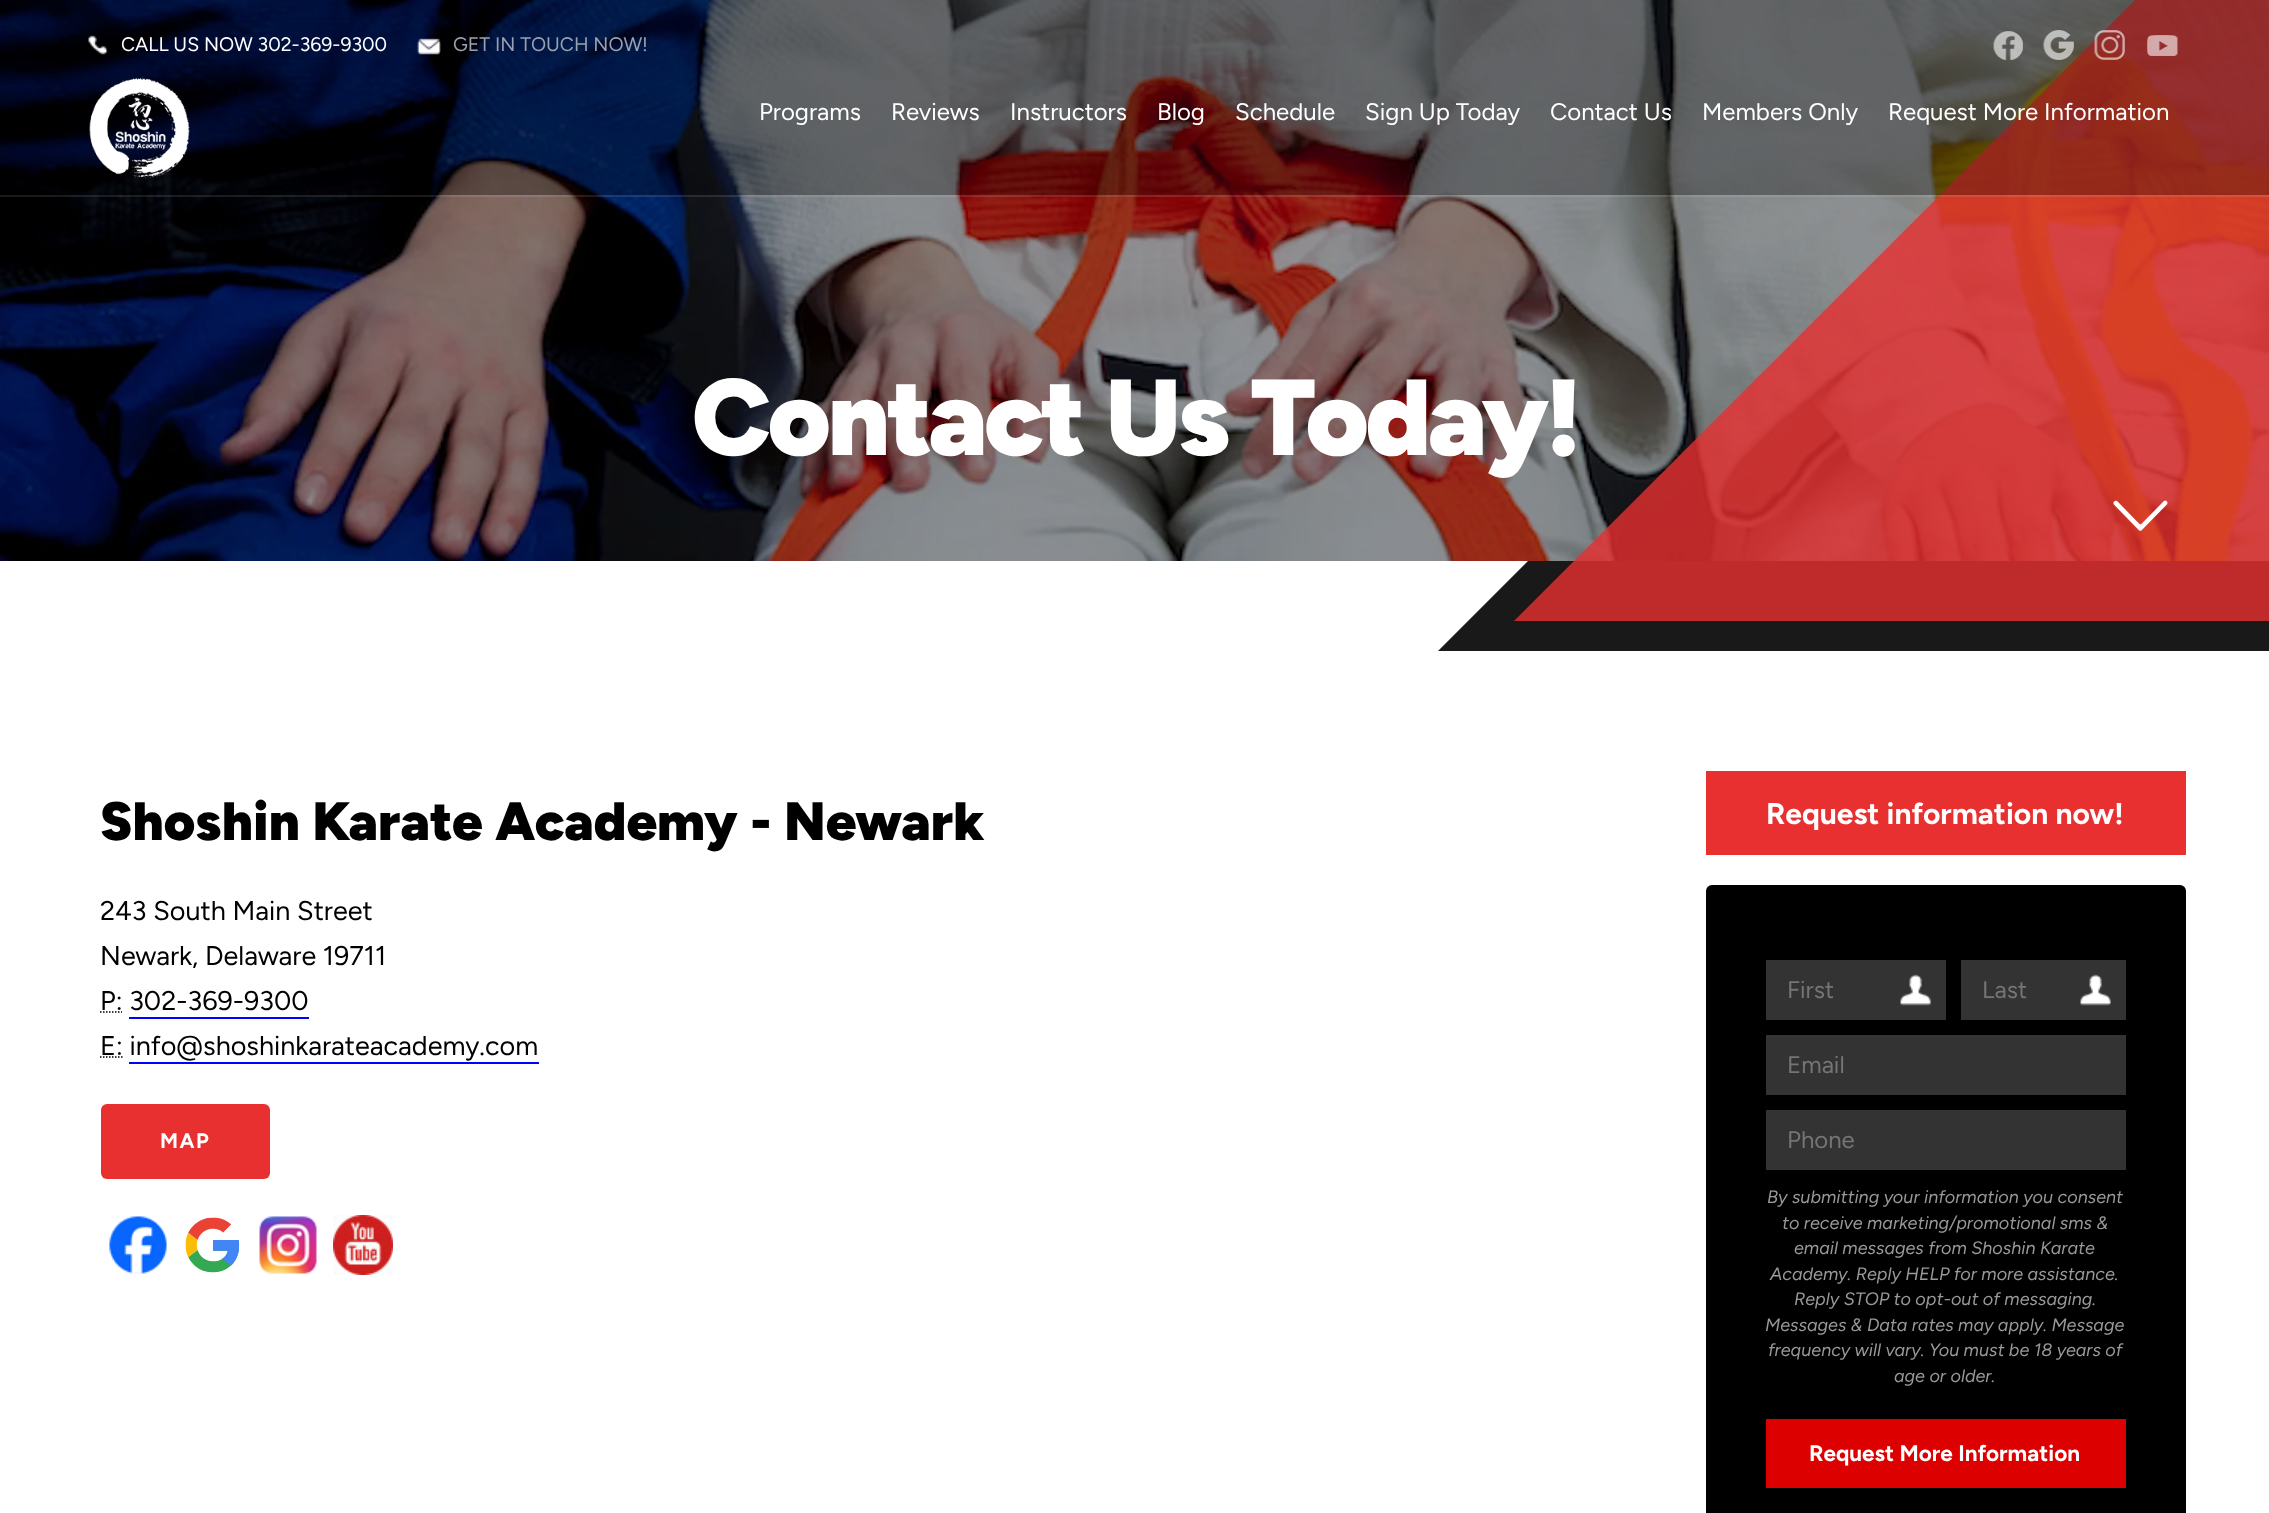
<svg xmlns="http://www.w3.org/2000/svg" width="2269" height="1513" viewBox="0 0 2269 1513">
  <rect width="100%" height="100%" fill="rgb(255,255,255)"/>
  <rect x="0" y="0" width="2269" height="561" fill="rgb(0,0,0)"/>
  <path d="M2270-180V651H1438Z" fill="rgba(0,0,0,0.9)"/>
  <image x="0" y="0" width="2269" height="561" href="pic8.png"/>
  <path d="M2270-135V621H1514Z" fill="rgba(232,48,48,0.8)"/>
  <path d="M0 195V197H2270V2V195Z" fill="rgba(255,255,255,0.1)"/>
  <rect x="0" y="0" width="2269" height="195" fill="rgba(0,0,0,0.3)"/>
  <image x="88" y="35" width="20" height="20" href="pic1.png"/>
  <text x="121" y="51" font-family="Figtree" font-size="19.5" fill="rgb(255,255,255)">CALL US NOW 302-369-9300</text>
  <image x="417" y="38" width="24" height="17" href="pic2.png"/>
  <text x="453" y="51" font-family="Figtree" font-size="19.5" fill="rgb(153,160,175)">GET IN TOUCH NOW!</text>
  <image x="1993" y="31" width="30" height="29" href="pic3.png"/>
  <image x="2043" y="30" width="31" height="30" href="pic4.png"/>
  <image x="2094" y="30" width="31" height="30" href="pic5.png"/>
  <image x="2147" y="35" width="31" height="21" href="pic6.png"/>
  <image x="89" y="77" width="101" height="102" href="pic7.png"/>
  <g font-family="Figtree" font-size="24" fill="rgb(255,255,255)">
    <text x="759" y="120">Programs</text>
    <text x="891" y="120">Reviews</text>
    <text x="1010" y="120">Instructors</text>
    <text x="1157" y="120">Blog</text>
    <text x="1235" y="120">Schedule</text>
    <text x="1365" y="120">Sign Up Today</text>
    <text x="1550" y="120">Contact Us</text>
    <text x="1702" y="120">Members Only</text>
    <text x="1888" y="120">Request More Information</text>
  </g>
  <text x="692" y="455" font-family="Figtree" font-size="108" font-weight="900" letter-spacing="-3" fill="rgb(255,255,255)">Contact Us Today!</text>
  <image x="2113" y="500" width="55" height="31" href="pic9.png"/>
  <text x="100" y="840" font-family="Figtree" font-size="54" font-weight="900" fill="rgb(0,0,0)">Shoshin Karate Academy - Newark</text>
  <g font-family="Figtree" font-size="27" fill="rgb(0,0,0)">
    <text>
      <tspan x="100" y="920">243 South Main Street</tspan>
      <tspan x="100" y="965">Newark, Delaware 19711</tspan>
      <tspan x="100" y="1010">P: 302-369-9300</tspan>
    </text>
  </g>
  <path d="M100 1012H122" fill="none" stroke="rgb(0,0,0)" stroke-width="1.5" stroke-dasharray="1.5 1.5"/>
  <rect x="129" y="1017" width="180" height="2" fill="rgb(0,0,255)"/>
  <path d="M100 1057H122.5" fill="none" stroke="rgb(0,0,0)" stroke-width="1.5" stroke-dasharray="1.5 1.5"/>
  <text x="100" y="1055" font-family="Figtree" font-size="27" fill="rgb(0,0,0)">E: info@shoshinkarateacademy.com</text>
  <rect x="129" y="1062" width="410" height="2" fill="rgb(0,0,255)"/>
  <rect x="101" y="1104" width="169" height="75" rx="6" fill="rgb(232,48,48)"/>
  <text x="160" y="1148" font-family="Figtree" font-size="21" font-weight="bold" letter-spacing="1.5" fill="rgb(255,255,255)">MAP</text>
  <image x="109" y="1216" width="58" height="58" href="pic10.png"/>
  <image x="185" y="1217" width="55" height="56" href="pic11.png"/>
  <image x="259" y="1216" width="58" height="58" href="pic12.png"/>
  <image x="333" y="1215" width="60" height="60" href="pic13.png"/>
  <rect x="1706" y="771" width="480" height="84" fill="rgb(232,48,48)"/>
  <text x="1766" y="824" font-family="Figtree" font-size="30" font-weight="bold" fill="rgb(255,255,255)">Request information now!</text>
  <rect x="1706" y="885" width="480" height="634" rx="6" fill="rgb(0,0,0)"/>
  <rect x="1766" y="960" width="180" height="60" fill="rgb(51,51,51)"/>
  <image x="1900" y="974" width="31" height="32" href="pic14.png"/>
  <text x="1787" y="998" font-family="Figtree" font-size="24" fill="rgb(117,117,117)">First</text>
  <rect x="1961" y="960" width="165" height="60" fill="rgb(51,51,51)"/>
  <image x="2080" y="974" width="31" height="32" href="pic15.png"/>
  <text x="1982" y="998" font-family="Figtree" font-size="24" fill="rgb(117,117,117)">Last</text>
  <rect x="1766" y="1035" width="360" height="60" fill="rgb(51,51,51)"/>
  <text x="1787" y="1073" font-family="Figtree" font-size="24" fill="rgb(117,117,117)">Email</text>
  <rect x="1766" y="1110" width="360" height="60" fill="rgb(51,51,51)"/>
  <text x="1787" y="1148" font-family="Figtree" font-size="24" fill="rgb(117,117,117)">Phone</text>
  <g font-family="Figtree" font-size="18" font-style="italic" fill="rgb(153,153,153)">
    <text x="1767" y="1203">By submitting your information you consent</text>
    <text x="1782" y="1229">to receive marketing/promotional sms &amp;</text>
    <text x="1794" y="1254">email messages from Shoshin Karate</text>
    <text x="1770" y="1280">Academy. Reply HELP for more assistance.</text>
    <text x="1794" y="1305">Reply STOP to opt-out of messaging.</text>
    <text x="1765" y="1331">Messages &amp; Data rates may apply. Message</text>
    <text x="1768" y="1356">frequency will vary. You must be 18 years of</text>
    <text x="1894" y="1382">age or older.</text>
  </g>
  <rect x="1766" y="1419" width="360" height="69" fill="rgb(220,0,0)"/>
  <text x="1809" y="1461" font-family="Figtree" font-size="22.5" font-weight="bold" fill="rgb(255,255,255)">Request More Information</text>
</svg>
